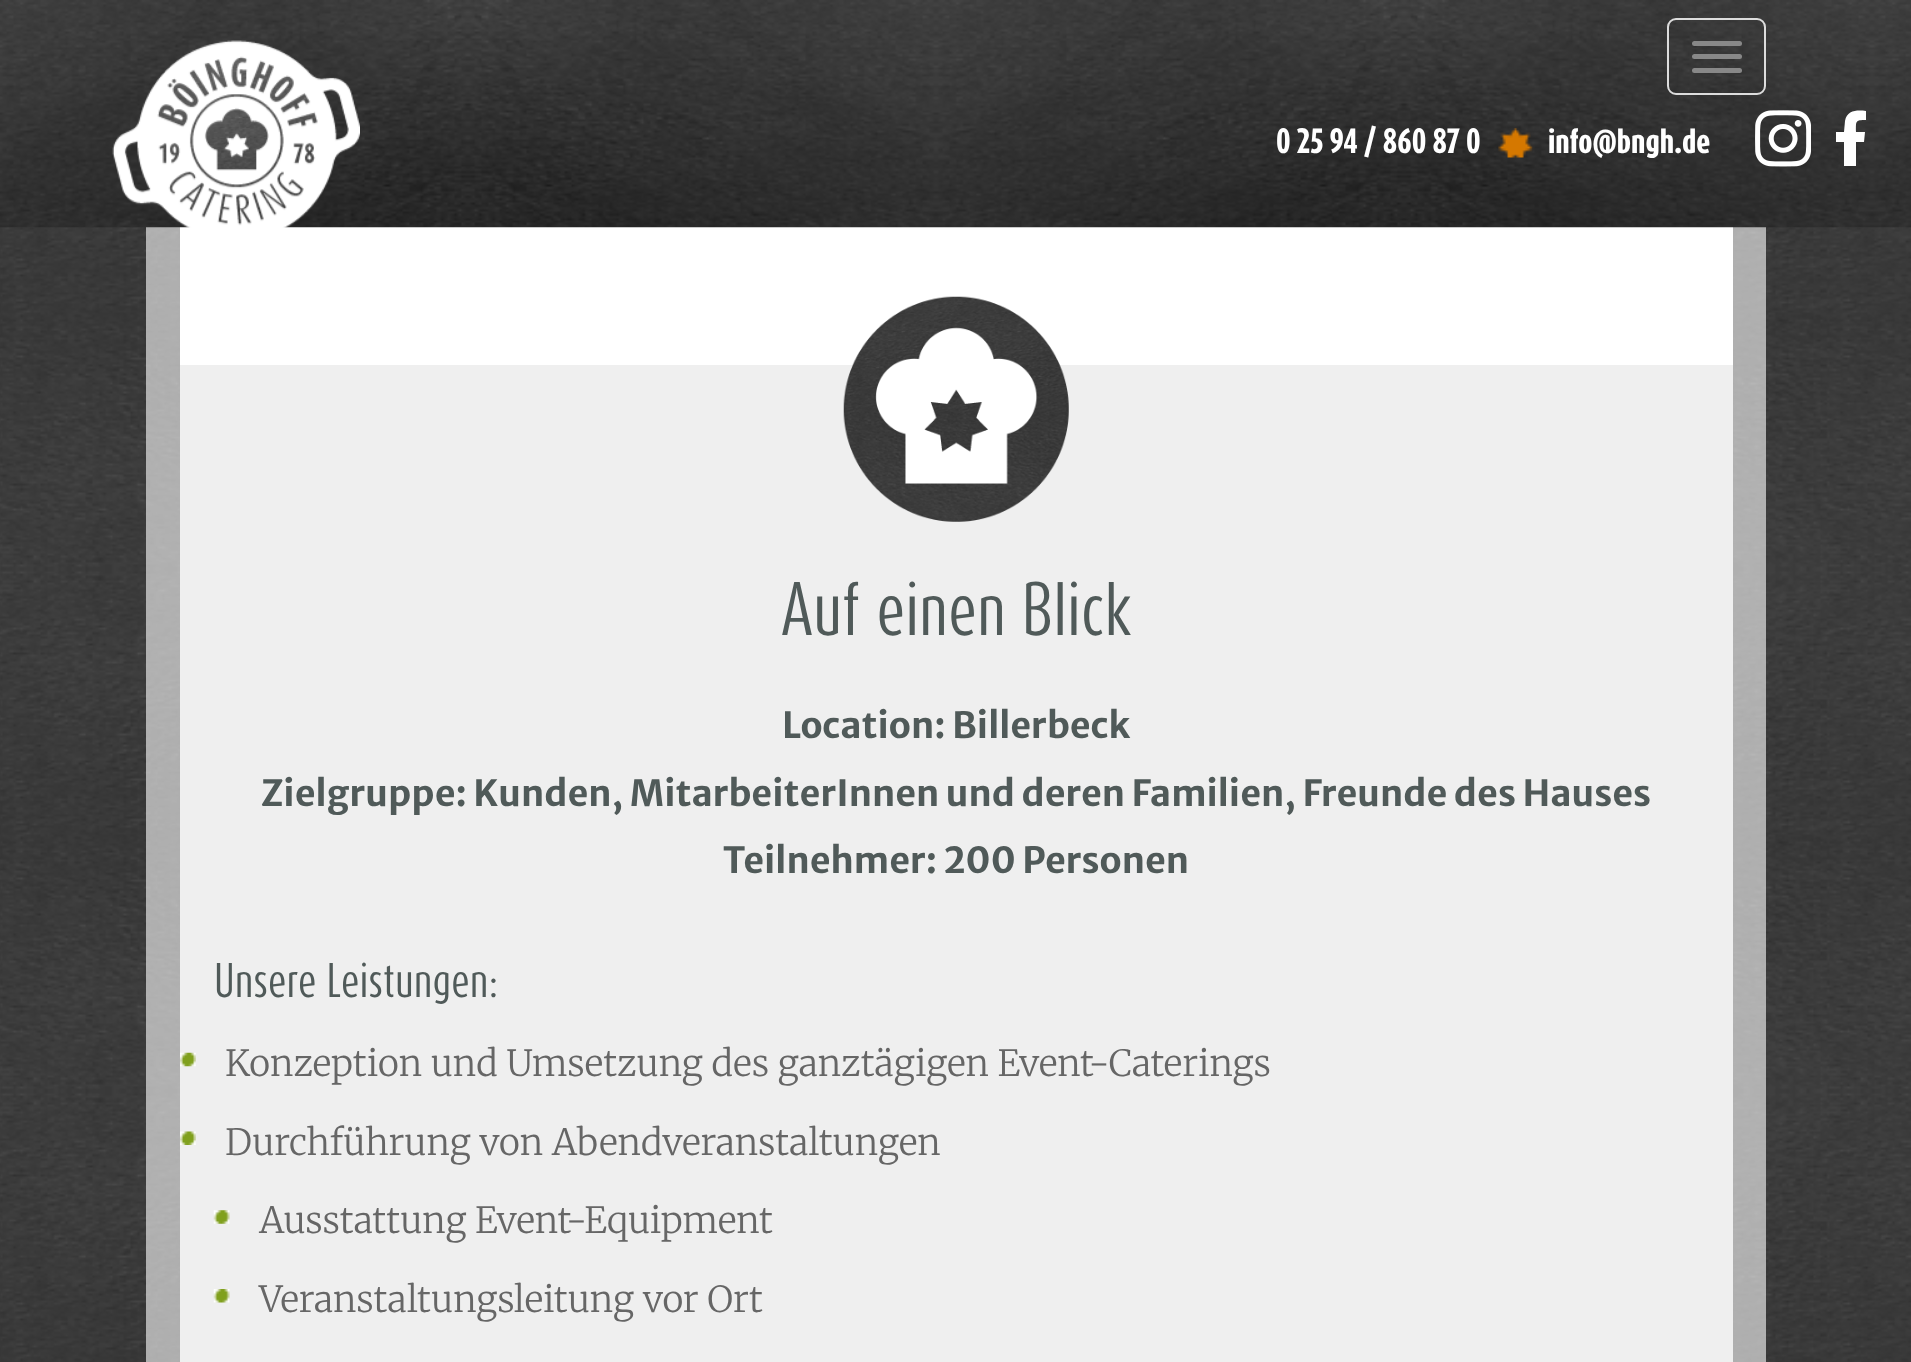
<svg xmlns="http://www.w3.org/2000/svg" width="1911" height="1362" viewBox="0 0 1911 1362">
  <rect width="100%" height="100%" fill="rgb(255,255,255)"/>
  <image x="0" y="227" width="1911" height="1135" href="pic1.png"/>
  <rect x="180" y="227" width="1553" height="138" fill="rgb(255,255,255)"/>
  <rect x="163" y="-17" width="1586" height="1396" fill="none" stroke="rgba(255,255,255,0.6)" stroke-width="34"/>
  <image x="0" y="0" width="1911" height="228" href="pic2.png"/>
  <image x="112" y="40" width="248" height="188" href="pic3.png"/>
  <rect x="1668" y="19" width="97" height="75" rx="8" fill="none" stroke="rgb(221,221,221)" stroke-width="2"/>
  <rect x="1692" y="41" width="50" height="5" rx="2.5" fill="rgb(136,136,136)"/>
  <rect x="1692" y="54" width="50" height="5" rx="2.5" fill="rgb(136,136,136)"/>
  <rect x="1692" y="68" width="50" height="5" rx="2.5" fill="rgb(136,136,136)"/>
  <text x="1276" y="153" font-family="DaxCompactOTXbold" font-size="29.25" font-weight="bold" fill="rgb(255,255,255)">0 25 94 / 860 87 0</text>
  <image x="1498" y="128" width="35" height="30" href="pic4.png"/>
  <text x="1548" y="153" font-family="DaxCompactOTXbold" font-size="29.25" font-weight="bold" fill="rgb(255,255,255)">info@bngh.de</text>
  <image x="1755" y="110" width="56" height="57" href="pic5.png"/>
  <path d="M1864 142L1865 132H1856C1856 121 1855 120 1866 120V111C1857 110 1847 110 1845 121L1844 132H1836V142H1844V166H1856V142Z" fill="rgb(255,255,255)"/>
  <rect x="180" y="365" width="1553" height="997" fill="rgb(239,239,239)"/>
  <image x="843" y="296" width="226" height="226" href="pic6.png"/>
  <text x="781" y="635" font-family="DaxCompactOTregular" font-size="63" fill="rgb(80,90,89)">Auf einen Blick</text>
  <g font-family="Merriweather Sans" font-size="36" font-weight="bold" fill="rgb(80,90,89)">
    <text x="782" y="738">Location: Billerbeck</text>
    <text x="261" y="806">Zielgruppe: Kunden, MitarbeiterInnen und deren Familien, Freunde des Hauses</text>
    <text x="723" y="873">Teilnehmer: 200 Personen</text>
  </g>
  <text x="214" y="997" font-family="DaxCompactOTregular" font-size="40.5" fill="rgb(80,90,89)">Unsere Leistungen:</text>
  <image x="180" y="1052" width="16" height="15" href="pic7.png"/>
  <text x="225" y="1076" font-family="Merriweather" font-size="36" font-weight="300" fill="rgb(102,102,102)">Konzeption und Umsetzung des ganztägigen Event-Caterings</text>
  <image x="180" y="1131" width="16" height="14" href="pic8.png"/>
  <text x="225" y="1155" font-family="Merriweather" font-size="36" font-weight="300" fill="rgb(102,102,102)">Durchführung von Abendveranstaltungen</text>
  <image x="213" y="1210" width="17" height="14" href="pic9.png"/>
  <text x="259" y="1233" font-family="Merriweather" font-size="36" font-weight="300" fill="rgb(102,102,102)">Ausstattung Event-Equipment</text>
  <image x="213" y="1289" width="17" height="14" href="pic10.png"/>
  <text x="259" y="1312" font-family="Merriweather" font-size="36" font-weight="300" fill="rgb(102,102,102)">Veranstaltungsleitung vor Ort</text>
</svg>
